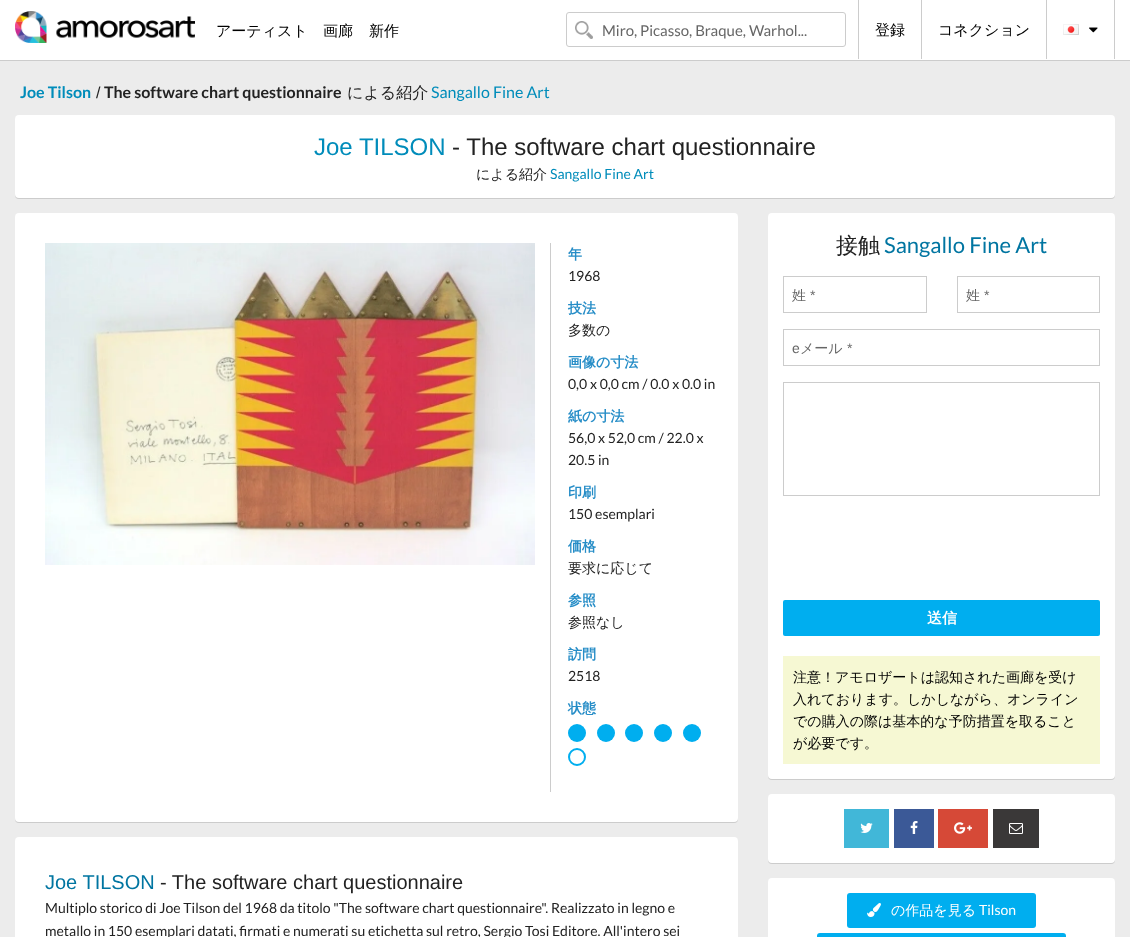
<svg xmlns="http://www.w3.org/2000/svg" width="1130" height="937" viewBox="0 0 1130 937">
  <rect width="100%" height="100%" fill="rgb(236,236,236)"/>
  <rect x="0" y="1" width="1130" height="60" fill="rgb(204,204,204)" filter="blur(0.5px)"/>
  <rect x="0" y="0" width="1130" height="60" fill="rgb(255,255,255)"/>
  <image x="15" y="11" width="180" height="32" href="pic1.png"/>
  <g font-family="WenQuanYi Zen Hei" font-size="15" font-weight="500" fill="rgb(0,0,0)">
    <text x="216" y="36">アーティスト</text>
    <text x="323" y="36">画廊</text>
    <text x="369" y="36">新作</text>
  </g>
  <image x="575" y="21" width="18" height="18" href="pic2.png"/>
  <rect x="566.5" y="12.5" width="279" height="34" rx="2.5" fill="none" stroke="rgb(204,204,204)"/>
  <text x="602" y="36" font-family="Lato" font-size="15" fill="rgb(102,102,102)">Miro, Picasso, Braque, Warhol...</text>
  <rect x="858" y="0" width="1" height="59" fill="rgb(204,204,204)"/>
  <text x="875" y="35" font-family="WenQuanYi Zen Hei" font-size="15" font-weight="500" fill="rgb(0,0,0)">登録</text>
  <rect x="921" y="0" width="1" height="59" fill="rgb(204,204,204)"/>
  <text x="938" y="35" font-family="WenQuanYi Zen Hei" font-size="15" font-weight="500" fill="rgb(0,0,0)">コネクション</text>
  <rect x="1114" y="0" width="1" height="59" fill="rgb(204,204,204)"/>
  <rect x="1046" y="0" width="1" height="59" fill="rgb(204,204,204)"/>
  <image x="1063" y="24" width="16" height="11" href="pic3.png"/>
  <image x="1089" y="27" width="9" height="6" href="pic4.png"/>
  <text x="20" y="98" font-family="Lato" font-size="16" font-weight="bold" fill="rgb(0,140,186)">Joe Tilson</text>
  <text x="96" y="98" font-family="Liberation Sans" font-size="16" fill="rgb(34,34,34)">/</text>
  <text x="104" y="98" font-family="Lato" font-size="16" font-weight="bold" fill="rgb(34,34,34)">The software chart questionnaire</text>
  <text x="347" y="98" font-family="WenQuanYi Zen Hei" font-size="16" font-weight="500" fill="rgb(34,34,34)">による紹介</text>
  <text x="431" y="98" font-family="Lato" font-size="16" fill="rgb(0,140,186)">Sangallo Fine Art</text>
  <rect x="15" y="116" width="1100" height="83" rx="4" fill="rgb(204,204,204)" filter="blur(0.5px)"/>
  <rect x="15" y="115" width="1100" height="83" rx="4" fill="rgb(255,255,255)"/>
  <text x="314" y="155" font-family="Liberation Sans" font-size="24" fill="rgb(0,140,186)">Joe TILSON</text>
  <text x="452" y="155" font-family="Liberation Sans" font-size="24" fill="rgb(34,34,34)">- The software chart questionnaire</text>
  <text x="476" y="179" font-family="WenQuanYi Zen Hei" font-size="14" font-weight="500" fill="rgb(34,34,34)">による紹介</text>
  <text x="550" y="179" font-family="Lato" font-size="14" fill="rgb(0,140,186)">Sangallo Fine Art</text>
  <rect x="15" y="214" width="723" height="609" rx="4" fill="rgb(204,204,204)" filter="blur(0.5px)"/>
  <rect x="15" y="213" width="723" height="609" rx="4" fill="rgb(255,255,255)"/>
  <image x="45" y="243" width="490" height="322" href="pic5.png"/>
  <rect x="550" y="243" width="1" height="549" fill="rgb(204,204,204)"/>
  <text x="568" y="259" font-family="WenQuanYi Zen Hei" font-size="14" font-weight="bold" fill="rgb(38,141,199)">年</text>
  <text x="568" y="281" font-family="Lato" font-size="14" fill="rgb(34,34,34)">1968</text>
  <text x="568" y="313" font-family="WenQuanYi Zen Hei" font-size="14" font-weight="bold" fill="rgb(38,141,199)">技法</text>
  <text x="568" y="335" font-family="WenQuanYi Zen Hei" font-size="14" font-weight="500" fill="rgb(34,34,34)">多数の</text>
  <text x="568" y="367" font-family="WenQuanYi Zen Hei" font-size="14" font-weight="bold" fill="rgb(38,141,199)">画像の寸法</text>
  <text x="568" y="389" font-family="Lato" font-size="14" fill="rgb(34,34,34)">0,0 x 0,0 cm / 0.0 x 0.0 in</text>
  <text x="568" y="421" font-family="WenQuanYi Zen Hei" font-size="14" font-weight="bold" fill="rgb(38,141,199)">紙の寸法</text>
  <g font-family="Lato" font-size="14" fill="rgb(34,34,34)">
    <text>
      <tspan x="568" y="443">56,0 x 52,0 cm / 22.0 x</tspan>
      <tspan x="568" y="465">20.5 in</tspan>
    </text>
  </g>
  <text x="568" y="497" font-family="WenQuanYi Zen Hei" font-size="14" font-weight="bold" fill="rgb(38,141,199)">印刷</text>
  <text x="568" y="519" font-family="Lato" font-size="14" fill="rgb(34,34,34)">150 esemplari</text>
  <text x="568" y="551" font-family="WenQuanYi Zen Hei" font-size="14" font-weight="bold" fill="rgb(38,141,199)">価格</text>
  <text x="568" y="573" font-family="WenQuanYi Zen Hei" font-size="14" font-weight="500" fill="rgb(34,34,34)">要求に応じて</text>
  <text x="568" y="605" font-family="WenQuanYi Zen Hei" font-size="14" font-weight="bold" fill="rgb(38,141,199)">参照</text>
  <text x="568" y="627" font-family="WenQuanYi Zen Hei" font-size="14" font-weight="500" fill="rgb(34,34,34)">参照なし</text>
  <text x="568" y="659" font-family="WenQuanYi Zen Hei" font-size="14" font-weight="bold" fill="rgb(38,141,199)">訪問</text>
  <text x="568" y="681" font-family="Lato" font-size="14" fill="rgb(34,34,34)">2518</text>
  <text x="568" y="713" font-family="WenQuanYi Zen Hei" font-size="14" font-weight="bold" fill="rgb(38,141,199)">状態</text>
  <circle cx="577" cy="733" r="9" fill="rgb(0,174,239)"/>
  <circle cx="606" cy="733" r="9" fill="rgb(0,174,239)"/>
  <circle cx="634" cy="733" r="9" fill="rgb(0,174,239)"/>
  <circle cx="663" cy="733" r="9" fill="rgb(0,174,239)"/>
  <circle cx="692" cy="733" r="9" fill="rgb(0,174,239)"/>
  <circle cx="577" cy="757" r="8" fill="none" stroke="rgb(0,174,239)" stroke-width="2"/>
  <rect x="15" y="838" width="723" height="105" rx="4" fill="rgb(204,204,204)" filter="blur(0.5px)"/>
  <rect x="15" y="837" width="723" height="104" rx="4" fill="rgb(255,255,255)"/>
  <text x="45" y="889" font-family="Liberation Sans" font-size="20" fill="rgb(0,117,161)">Joe TILSON</text>
  <text x="160" y="889" font-family="Liberation Sans" font-size="20" fill="rgb(34,34,34)">- The software chart questionnaire</text>
  <g font-family="Lato" font-size="14" fill="rgb(34,34,34)">
    <text>
      <tspan x="45" y="913">Multiplo storico di Joe Tilson del 1968 da titolo "The software chart questionnaire". Realizzato in legno e</tspan>
      <tspan x="45" y="936">metallo in 150 esemplari datati, firmati e numerati su etichetta sul retro, Sergio Tosi Editore. All'intero sei</tspan>
    </text>
  </g>
  <rect x="768" y="214" width="347" height="566" rx="4" fill="rgb(204,204,204)" filter="blur(0.5px)"/>
  <rect x="768" y="213" width="347" height="566" rx="4" fill="rgb(255,255,255)"/>
  <text x="836" y="253" font-family="WenQuanYi Zen Hei" font-size="22" font-weight="500" fill="rgb(34,34,34)">接触</text>
  <text x="884" y="253" font-family="Lato" font-size="22" fill="rgb(0,117,161)">Sangallo Fine Art</text>
  <rect x="783.5" y="276.5" width="143" height="36" fill="none" stroke="rgb(204,204,204)"/>
  <text x="792" y="300" font-family="WenQuanYi Zen Hei" font-size="14" font-weight="500" fill="rgb(102,102,102)">姓</text>
  <text x="810" y="300" font-family="Liberation Sans" font-size="14" fill="rgb(102,102,102)">*</text>
  <rect x="957.5" y="276.5" width="142" height="36" fill="none" stroke="rgb(204,204,204)"/>
  <text x="966" y="300" font-family="WenQuanYi Zen Hei" font-size="14" font-weight="500" fill="rgb(102,102,102)">姓</text>
  <text x="984" y="300" font-family="Liberation Sans" font-size="14" fill="rgb(102,102,102)">*</text>
  <rect x="783.5" y="329.5" width="316" height="36" fill="none" stroke="rgb(204,204,204)"/>
  <text x="792" y="353" font-family="Liberation Sans" font-size="14" fill="rgb(102,102,102)">e</text>
  <text x="800" y="353" font-family="WenQuanYi Zen Hei" font-size="14" font-weight="500" fill="rgb(102,102,102)">メール</text>
  <text x="847" y="353" font-family="Liberation Sans" font-size="14" fill="rgb(102,102,102)">*</text>
  <rect x="783.5" y="382.5" width="316" height="113" fill="none" stroke="rgb(204,204,204)"/>
  <rect x="783" y="600" width="317" height="36" rx="2" fill="rgb(0,174,239)"/>
  <text x="927" y="623" font-family="WenQuanYi Zen Hei" font-size="15" font-weight="bold" fill="rgb(255,255,255)">送信</text>
  <rect x="783" y="656" width="317" height="108" fill="rgb(246,248,211)"/>
  <g font-family="WenQuanYi Zen Hei" font-size="14" font-weight="500" fill="rgb(0,0,0)">
    <text>
      <tspan x="793" y="682">注意！アモロザートは認知された画廊を受け</tspan>
      <tspan x="793" y="704">入れております。しかしながら、オンライン</tspan>
      <tspan x="793" y="726">での購入の際は基本的な予防措置を取ること</tspan>
      <tspan x="793" y="748">が必要です。</tspan>
    </text>
  </g>
  <rect x="768" y="795" width="347" height="69" rx="4" fill="rgb(204,204,204)" filter="blur(0.5px)"/>
  <rect x="768" y="794" width="347" height="69" rx="4" fill="rgb(255,255,255)"/>
  <rect x="844" y="809" width="45" height="39" fill="rgb(65,183,216)"/>
  <image x="860" y="823" width="13" height="10" href="pic6.png"/>
  <rect x="894" y="809" width="40" height="39" fill="rgb(59,89,151)"/>
  <image x="910" y="821" width="8" height="13" href="pic7.png"/>
  <rect x="938" y="809" width="50" height="39" fill="rgb(214,73,55)"/>
  <image x="954" y="822" width="18" height="12" href="pic8.png"/>
  <rect x="993" y="809" width="46" height="39" fill="rgb(58,56,56)"/>
  <image x="1009" y="823" width="14" height="11" href="pic9.png"/>
  <rect x="768" y="879" width="347" height="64" rx="4" fill="rgb(204,204,204)" filter="blur(0.5px)"/>
  <rect x="768" y="878" width="347" height="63" rx="4" fill="rgb(255,255,255)"/>
  <rect x="847" y="893" width="189" height="35" rx="3" fill="rgb(0,174,239)"/>
  <image x="867" y="903" width="14" height="14" href="pic10.png"/>
  <text x="891" y="915" font-family="WenQuanYi Zen Hei" font-size="14" font-weight="500" fill="rgb(255,255,255)">の作品を見る</text>
  <text x="979" y="915" font-family="Lato" font-size="14" fill="rgb(255,255,255)">Tilson</text>
  <rect x="817" y="933" width="249" height="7" rx="3" fill="rgb(0,174,239)"/>
</svg>
